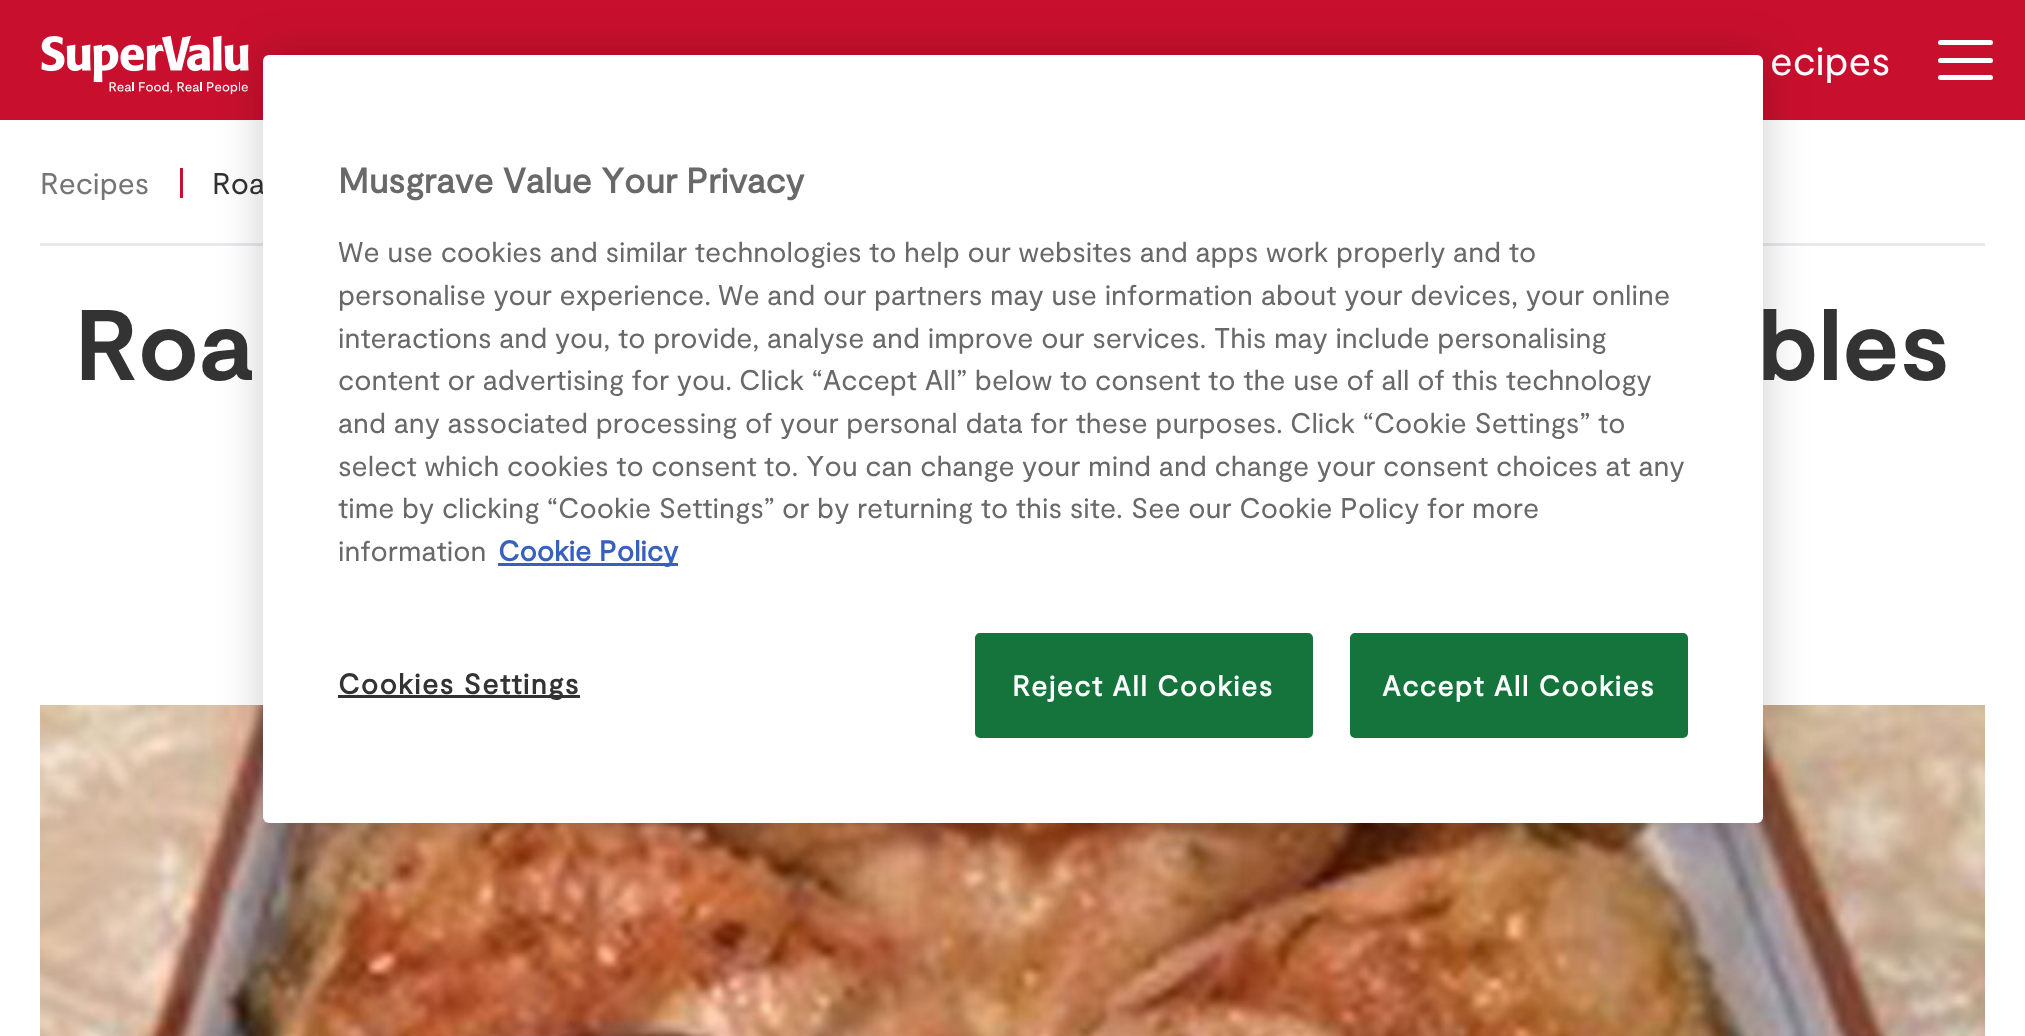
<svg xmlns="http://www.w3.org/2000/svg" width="2025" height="1036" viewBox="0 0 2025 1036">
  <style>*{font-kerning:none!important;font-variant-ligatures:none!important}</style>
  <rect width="100%" height="100%" fill="rgb(255,255,255)"/>
  <rect x="0" y="0" width="2025" height="120" fill="rgb(200,16,46)"/>
  <image x="41" y="35" width="208" height="60" href="pic1.png"/>
  <text x="1770" y="75" font-family="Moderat" font-size="40" fill="rgb(255,255,255)">ecipes</text>
  <rect x="1938" y="58" width="55" height="5" rx="2.5" fill="rgb(255,255,255)"/>
  <rect x="1938" y="40" width="55" height="5" rx="2.5" fill="rgb(255,255,255)"/>
  <rect x="1938" y="75" width="55" height="5" rx="2.5" fill="rgb(255,255,255)"/>
  <rect x="40" y="243" width="1945" height="3" fill="rgb(230,234,235)"/>
  <text x="40" y="194" font-family="Moderat" font-size="30" fill="rgb(117,117,117)">Recipes</text>
  <rect x="180" y="168" width="3" height="30" fill="rgb(200,16,46)"/>
  <text x="212" y="194" font-family="Moderat" font-size="30" fill="rgb(51,51,51)">Roa</text>
  <image x="40" y="705" width="1945" height="331" href="pic2.png"/>
  <rect x="263" y="55" width="1500" height="768" rx="6" fill="rgba(0,0,0,0.2)" filter="blur(22.5px)"/>
  <rect x="263" y="55" width="1500" height="768" rx="6" fill="rgb(255,255,255)"/>
  <text x="338" y="193" font-family="'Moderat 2'" font-size="35" font-weight="bold" fill="rgb(105,105,105)">Musgrave Value Your</text>
  <text x="686" y="193" font-family="'Moderat 2'" font-size="35" font-weight="bold" fill="rgb(105,105,105)">Privacy</text>
  <g font-family="Moderat" font-size="28.45" fill="rgb(105,105,105)">
    <text x="338" y="262">We use cookies and similar technologies</text>
    <text x="869" y="262">to help our websites and apps</text>
    <text x="1266" y="262">work properly and to</text>
    <text x="338" y="305">personalise your experience.</text>
    <text x="718" y="305">We and our partners may use information</text>
    <text x="1261" y="305">about your devices, your online</text>
    <text x="338" y="348">interactions and you, to provide,</text>
    <text x="767" y="348">analyse and improve our services.</text>
    <text x="1214" y="348">This may include personalising</text>
    <text x="338" y="390">content or advertising for you.</text>
    <text x="739" y="390">Click “Accept All” below</text>
    <text x="1060" y="390">to consent to the use of all of</text>
    <text x="1452" y="390">this technology</text>
    <text x="338" y="433">and any associated processing</text>
    <text x="745" y="433">of your personal data for these purposes.</text>
    <text x="1290" y="433">Click “Cookie Settings” to</text>
    <text x="338" y="476">select which cookies to consent</text>
    <text x="764" y="476">to. You can change</text>
    <text x="1022" y="476">your mind and change your consent</text>
    <text x="1496" y="476">choices at any</text>
    <text x="338" y="518">time by clicking “Cookie Settings”</text>
    <text x="782" y="518">or by returning to this site.</text>
    <text x="1131" y="518">See our Cookie Policy for</text>
    <text x="1472" y="518">more</text>
    <text x="338" y="561">information</text>
  </g>
  <rect x="498" y="563" width="180" height="3" fill="rgb(56,96,190)"/>
  <text x="498" y="561" font-family="'Moderat 2'" font-size="28.45" font-weight="bold" fill="rgb(56,96,190)">Cookie Policy</text>
  <rect x="338" y="695" width="242" height="3" fill="rgb(51,51,51)"/>
  <text x="338" y="694" font-family="'Moderat 2'" font-size="28.45" font-weight="bold" letter-spacing="1.4" fill="rgb(51,51,51)">Cookies Settings</text>
  <rect x="976.5" y="634.5" width="335" height="102" rx="3.5" fill="rgb(21,116,60)" stroke="rgb(21,116,60)" stroke-width="3"/>
  <text x="1012" y="696" font-family="'Moderat 2'" font-size="28.45" font-weight="bold" letter-spacing="1.4" fill="rgb(255,255,255)">Reject All Cookies</text>
  <rect x="1351.5" y="634.5" width="335" height="102" rx="3.5" fill="rgb(21,116,60)" stroke="rgb(21,116,60)" stroke-width="3"/>
  <text x="1382" y="696" font-family="'Moderat 2'" font-size="28.45" font-weight="bold" letter-spacing="1.4" fill="rgb(255,255,255)">Accept All Cookies</text>
  <g font-family="Moderat" font-size="100" font-weight="bold" fill="rgb(51,51,51)">
    <text x="75" y="380">Roa</text>
    <text x="1758" y="380">bles</text>
  </g>
</svg>
